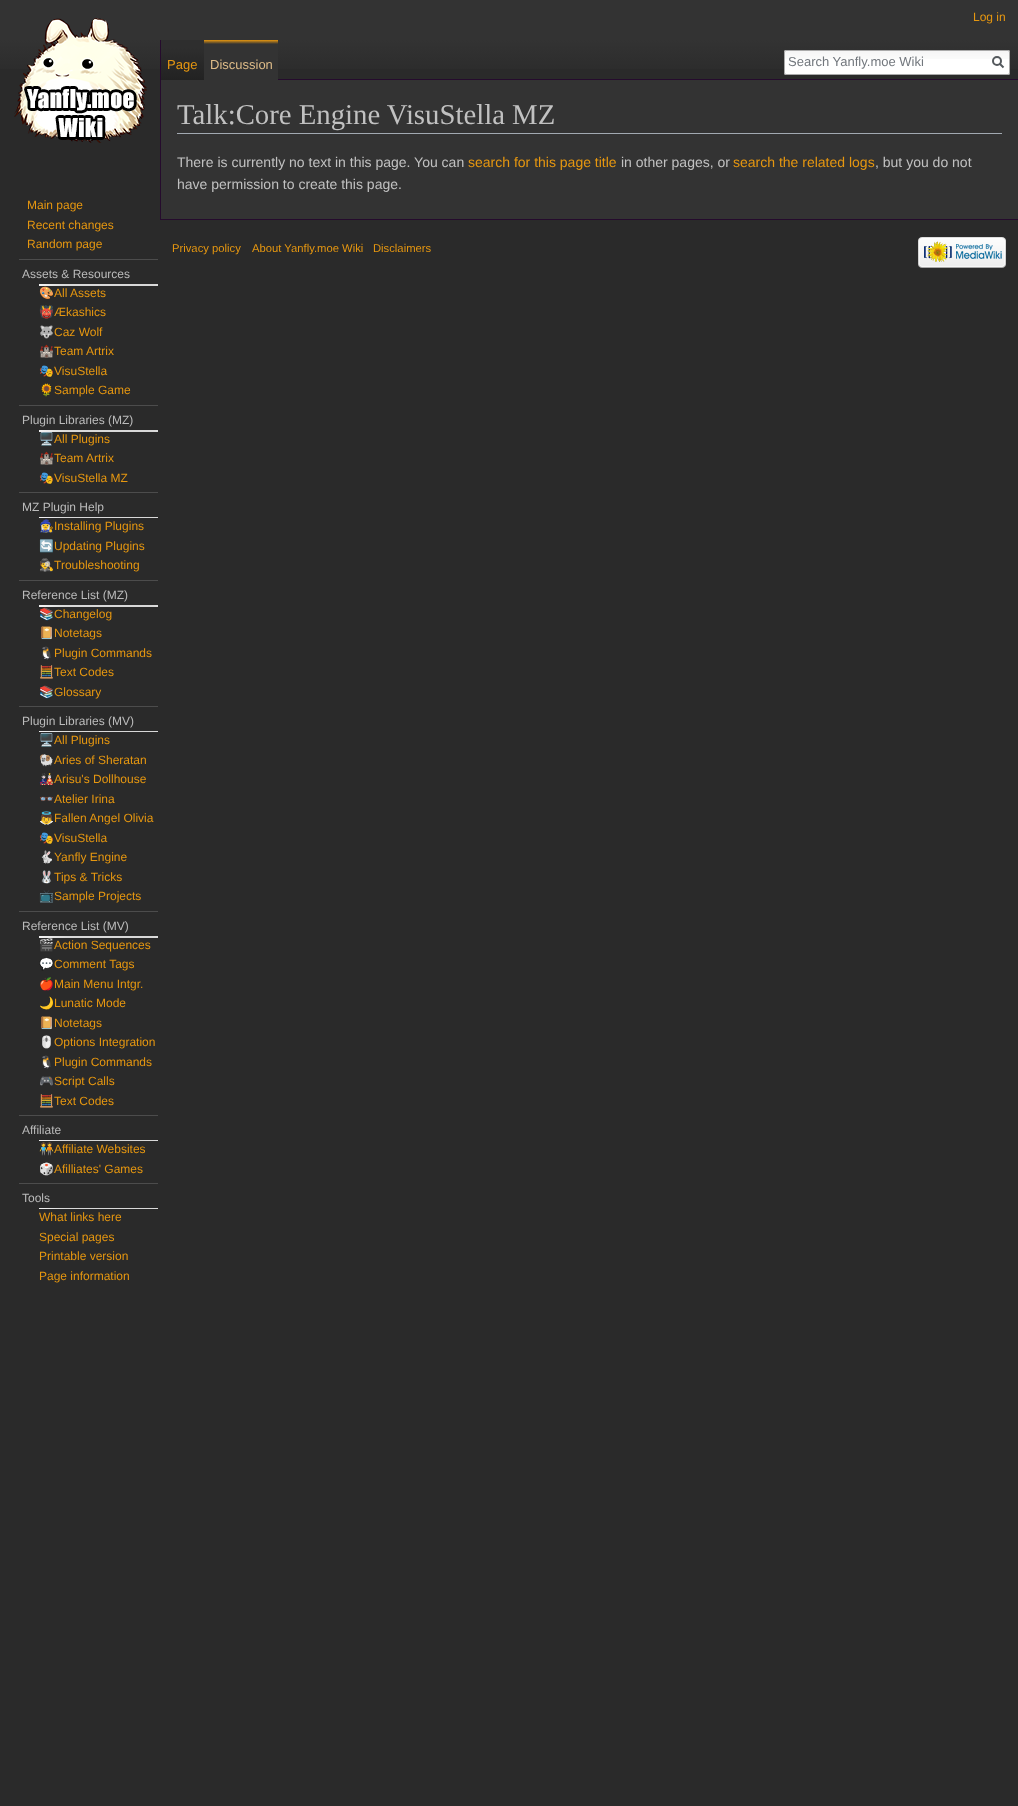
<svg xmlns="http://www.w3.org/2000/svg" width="1018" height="1806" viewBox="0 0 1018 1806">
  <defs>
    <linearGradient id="g1" gradientUnits="userSpaceOnUse" x1="509" y1="0" x2="509" y2="80"><stop offset="0.5" stop-color="rgb(51,51,51)"/><stop offset="1" stop-color="rgb(42,42,42)"/></linearGradient>
    <linearGradient id="g2" gradientUnits="userSpaceOnUse" x1="183" y1="40" x2="183" y2="80"><stop offset="0.2" stop-color="rgb(46,46,46)"/><stop offset="1" stop-color="rgb(34,34,34)"/></linearGradient>
    <linearGradient id="g3" gradientUnits="userSpaceOnUse" x1="241" y1="40" x2="241" y2="80"><stop offset="0" stop-color="rgb(230,151,16)"/><stop offset="0.1" stop-color="rgb(51,51,51)"/></linearGradient>
  </defs>
  <rect width="100%" height="100%" fill="rgb(42,42,42)"/>
  <rect x="0" y="0" width="1018" height="69" fill="url(#g1)"/>
  <text x="973" y="21" font-family="Liberation Sans" font-size="12" fill="rgb(230,151,16)">Log in</text>
  <rect x="161" y="40" width="43" height="40" fill="url(#g2)"/>
  <text x="167" y="69" font-family="Liberation Sans" font-size="13" fill="rgb(230,151,16)">Page</text>
  <rect x="204" y="40" width="74" height="40" fill="url(#g3)"/>
  <text x="210" y="69" font-family="Liberation Sans" font-size="13" fill="rgb(221,187,136)">Discussion</text>
  <rect x="784" y="50" width="226" height="25" rx="2" fill="rgb(255,255,255)"/>
  <image x="784" y="51" width="226" height="8" href="pic1.png"/>
  <rect x="784.5" y="50.5" width="225" height="24" rx="1.5" fill="none" stroke="rgb(170,170,170)"/>
  <text x="788" y="66" font-family="Liberation Sans" font-size="13" fill="rgb(114,119,125)">Search Yanfly.moe Wiki</text>
  <path d="M1003.5 67.5L999.5 63.5" fill="none" stroke="rgb(84,89,93)" stroke-width="2"/>
  <circle cx="997" cy="61" r="4" fill="none" stroke="rgb(84,89,93)" stroke-width="2"/>
  <image x="14" y="18" width="133" height="125" href="pic2.png"/>
  <g font-family="Liberation Sans" font-size="12" fill="rgb(230,151,16)">
    <text>
      <tspan x="27" y="209">Main page</tspan>
      <tspan x="27" y="229">Recent changes</tspan>
      <tspan x="27" y="248">Random page</tspan>
    </text>
  </g>
  <rect x="19" y="259" width="139" height="1" fill="rgb(76,76,76)"/>
  <text x="22" y="278" font-family="Liberation Sans" font-size="12" fill="rgb(187,187,187)">Assets &amp; Resources</text>
  <image x="39" y="284" width="119" height="2" href="pic3.png"/>
  <text x="39" y="297" font-family="Noto Color Emoji" font-size="12" fill="rgb(230,151,16)">🎨</text>
  <text x="54" y="297" font-family="Liberation Sans" font-size="12" fill="rgb(230,151,16)">All Assets</text>
  <text x="39" y="316" font-family="Noto Color Emoji" font-size="12" fill="rgb(230,151,16)">👹</text>
  <text x="54" y="316" font-family="Liberation Sans" font-size="12" fill="rgb(230,151,16)">Ækashics</text>
  <text x="39" y="336" font-family="Noto Color Emoji" font-size="12" fill="rgb(230,151,16)">🐺</text>
  <text x="54" y="336" font-family="Liberation Sans" font-size="12" fill="rgb(230,151,16)">Caz Wolf</text>
  <text x="39" y="355" font-family="Noto Color Emoji" font-size="12" fill="rgb(230,151,16)">🏰</text>
  <text x="54" y="355" font-family="Liberation Sans" font-size="12" fill="rgb(230,151,16)">Team Artrix</text>
  <text x="39" y="375" font-family="Noto Color Emoji" font-size="12" fill="rgb(230,151,16)">🎭</text>
  <text x="54" y="375" font-family="Liberation Sans" font-size="12" fill="rgb(230,151,16)">VisuStella</text>
  <text x="39" y="394" font-family="Noto Color Emoji" font-size="12" fill="rgb(230,151,16)">🌻</text>
  <text x="54" y="394" font-family="Liberation Sans" font-size="12" fill="rgb(230,151,16)">Sample Game</text>
  <rect x="19" y="405" width="139" height="1" fill="rgb(76,76,76)"/>
  <text x="22" y="424" font-family="Liberation Sans" font-size="12" fill="rgb(187,187,187)">Plugin Libraries (MZ)</text>
  <image x="39" y="430" width="119" height="2" href="pic3.png"/>
  <text x="39" y="443" font-family="Noto Color Emoji" font-size="12" fill="rgb(230,151,16)">🖥️</text>
  <text x="54" y="443" font-family="Liberation Sans" font-size="12" fill="rgb(230,151,16)">All Plugins</text>
  <text x="39" y="462" font-family="Noto Color Emoji" font-size="12" fill="rgb(230,151,16)">🏰</text>
  <text x="54" y="462" font-family="Liberation Sans" font-size="12" fill="rgb(230,151,16)">Team Artrix</text>
  <text x="39" y="482" font-family="Noto Color Emoji" font-size="12" fill="rgb(230,151,16)">🎭</text>
  <text x="54" y="482" font-family="Liberation Sans" font-size="12" fill="rgb(230,151,16)">VisuStella MZ</text>
  <rect x="19" y="492" width="139" height="1" fill="rgb(76,76,76)"/>
  <text x="22" y="511" font-family="Liberation Sans" font-size="12" fill="rgb(187,187,187)">MZ Plugin Help</text>
  <image x="39" y="517" width="119" height="1" href="pic4.png"/>
  <text x="39" y="530" font-family="Noto Color Emoji" font-size="12" fill="rgb(230,151,16)">🧙‍♀️</text>
  <text x="54" y="530" font-family="Liberation Sans" font-size="12" fill="rgb(230,151,16)">Installing Plugins</text>
  <text x="39" y="550" font-family="Noto Color Emoji" font-size="12" fill="rgb(230,151,16)">🔄</text>
  <text x="54" y="550" font-family="Liberation Sans" font-size="12" fill="rgb(230,151,16)">Updating Plugins</text>
  <text x="39" y="569" font-family="Noto Color Emoji" font-size="12" fill="rgb(230,151,16)">🕵️</text>
  <text x="54" y="569" font-family="Liberation Sans" font-size="12" fill="rgb(230,151,16)">Troubleshooting</text>
  <rect x="19" y="580" width="139" height="1" fill="rgb(76,76,76)"/>
  <text x="22" y="599" font-family="Liberation Sans" font-size="12" fill="rgb(187,187,187)">Reference List (MZ)</text>
  <image x="39" y="605" width="119" height="2" href="pic3.png"/>
  <text x="39" y="618" font-family="Noto Color Emoji" font-size="12" fill="rgb(230,151,16)">📚</text>
  <text x="54" y="618" font-family="Liberation Sans" font-size="12" fill="rgb(230,151,16)">Changelog</text>
  <text x="39" y="637" font-family="Noto Color Emoji" font-size="12" fill="rgb(230,151,16)">📔</text>
  <text x="54" y="637" font-family="Liberation Sans" font-size="12" fill="rgb(230,151,16)">Notetags</text>
  <text x="39" y="657" font-family="Noto Color Emoji" font-size="12" fill="rgb(230,151,16)">🐧</text>
  <text x="54" y="657" font-family="Liberation Sans" font-size="12" fill="rgb(230,151,16)">Plugin Commands</text>
  <text x="39" y="676" font-family="Noto Color Emoji" font-size="12" fill="rgb(230,151,16)">🧮</text>
  <text x="54" y="676" font-family="Liberation Sans" font-size="12" fill="rgb(230,151,16)">Text Codes</text>
  <text x="39" y="696" font-family="Noto Color Emoji" font-size="12" fill="rgb(230,151,16)">📚</text>
  <text x="54" y="696" font-family="Liberation Sans" font-size="12" fill="rgb(230,151,16)">Glossary</text>
  <rect x="19" y="706" width="139" height="1" fill="rgb(76,76,76)"/>
  <text x="22" y="725" font-family="Liberation Sans" font-size="12" fill="rgb(187,187,187)">Plugin Libraries (MV)</text>
  <image x="39" y="731" width="119" height="1" href="pic4.png"/>
  <text x="39" y="744" font-family="Noto Color Emoji" font-size="12" fill="rgb(230,151,16)">🖥️</text>
  <text x="54" y="744" font-family="Liberation Sans" font-size="12" fill="rgb(230,151,16)">All Plugins</text>
  <text x="39" y="764" font-family="Noto Color Emoji" font-size="12" fill="rgb(230,151,16)">🐏</text>
  <text x="54" y="764" font-family="Liberation Sans" font-size="12" fill="rgb(230,151,16)">Aries of Sheratan</text>
  <text x="39" y="783" font-family="Noto Color Emoji" font-size="12" fill="rgb(230,151,16)">🎎</text>
  <text x="54" y="783" font-family="Liberation Sans" font-size="12" fill="rgb(230,151,16)">Arisu's Dollhouse</text>
  <text x="39" y="803" font-family="Noto Color Emoji" font-size="12" fill="rgb(230,151,16)">👓</text>
  <text x="54" y="803" font-family="Liberation Sans" font-size="12" fill="rgb(230,151,16)">Atelier Irina</text>
  <text x="39" y="822" font-family="Noto Color Emoji" font-size="12" fill="rgb(230,151,16)">👼</text>
  <text x="54" y="822" font-family="Liberation Sans" font-size="12" fill="rgb(230,151,16)">Fallen Angel Olivia</text>
  <text x="39" y="842" font-family="Noto Color Emoji" font-size="12" fill="rgb(230,151,16)">🎭</text>
  <text x="54" y="842" font-family="Liberation Sans" font-size="12" fill="rgb(230,151,16)">VisuStella</text>
  <text x="39" y="861" font-family="Noto Color Emoji" font-size="12" fill="rgb(230,151,16)">🐇</text>
  <text x="54" y="861" font-family="Liberation Sans" font-size="12" fill="rgb(230,151,16)">Yanfly Engine</text>
  <text x="39" y="881" font-family="Noto Color Emoji" font-size="12" fill="rgb(230,151,16)">🐰</text>
  <text x="54" y="881" font-family="Liberation Sans" font-size="12" fill="rgb(230,151,16)">Tips &amp; Tricks</text>
  <text x="39" y="900" font-family="Noto Color Emoji" font-size="12" fill="rgb(230,151,16)">📺</text>
  <text x="54" y="900" font-family="Liberation Sans" font-size="12" fill="rgb(230,151,16)">Sample Projects</text>
  <rect x="19" y="911" width="139" height="1" fill="rgb(76,76,76)"/>
  <text x="22" y="930" font-family="Liberation Sans" font-size="12" fill="rgb(187,187,187)">Reference List (MV)</text>
  <image x="39" y="936" width="119" height="2" href="pic3.png"/>
  <text x="39" y="949" font-family="Noto Color Emoji" font-size="12" fill="rgb(230,151,16)">🎬</text>
  <text x="54" y="949" font-family="Liberation Sans" font-size="12" fill="rgb(230,151,16)">Action Sequences</text>
  <text x="39" y="968" font-family="Noto Color Emoji" font-size="12" fill="rgb(230,151,16)">💬</text>
  <text x="54" y="968" font-family="Liberation Sans" font-size="12" fill="rgb(230,151,16)">Comment Tags</text>
  <text x="39" y="988" font-family="Noto Color Emoji" font-size="12" fill="rgb(230,151,16)">🍎</text>
  <text x="54" y="988" font-family="Liberation Sans" font-size="12" fill="rgb(230,151,16)">Main Menu Intgr.</text>
  <text x="39" y="1007" font-family="Noto Color Emoji" font-size="12" fill="rgb(230,151,16)">🌙</text>
  <text x="54" y="1007" font-family="Liberation Sans" font-size="12" fill="rgb(230,151,16)">Lunatic Mode</text>
  <text x="39" y="1027" font-family="Noto Color Emoji" font-size="12" fill="rgb(230,151,16)">📔</text>
  <text x="54" y="1027" font-family="Liberation Sans" font-size="12" fill="rgb(230,151,16)">Notetags</text>
  <text x="39" y="1046" font-family="Noto Color Emoji" font-size="12" fill="rgb(230,151,16)">🖱️</text>
  <text x="54" y="1046" font-family="Liberation Sans" font-size="12" fill="rgb(230,151,16)">Options Integration</text>
  <text x="39" y="1066" font-family="Noto Color Emoji" font-size="12" fill="rgb(230,151,16)">🐧</text>
  <text x="54" y="1066" font-family="Liberation Sans" font-size="12" fill="rgb(230,151,16)">Plugin Commands</text>
  <text x="39" y="1085" font-family="Noto Color Emoji" font-size="12" fill="rgb(230,151,16)">🎮</text>
  <text x="54" y="1085" font-family="Liberation Sans" font-size="12" fill="rgb(230,151,16)">Script Calls</text>
  <text x="39" y="1105" font-family="Noto Color Emoji" font-size="12" fill="rgb(230,151,16)">🧮</text>
  <text x="54" y="1105" font-family="Liberation Sans" font-size="12" fill="rgb(230,151,16)">Text Codes</text>
  <rect x="19" y="1115" width="139" height="1" fill="rgb(76,76,76)"/>
  <text x="22" y="1134" font-family="Liberation Sans" font-size="12" fill="rgb(187,187,187)">Affiliate</text>
  <image x="39" y="1140" width="119" height="1" href="pic4.png"/>
  <text x="39" y="1153" font-family="Noto Color Emoji" font-size="12" fill="rgb(230,151,16)">🧑‍🤝‍🧑</text>
  <text x="54" y="1153" font-family="Liberation Sans" font-size="12" fill="rgb(230,151,16)">Affiliate Websites</text>
  <text x="39" y="1173" font-family="Noto Color Emoji" font-size="12" fill="rgb(230,151,16)">🎲</text>
  <text x="54" y="1173" font-family="Liberation Sans" font-size="12" fill="rgb(230,151,16)">Afilliates' Games</text>
  <rect x="19" y="1183" width="139" height="1" fill="rgb(76,76,76)"/>
  <text x="22" y="1202" font-family="Liberation Sans" font-size="12" fill="rgb(187,187,187)">Tools</text>
  <image x="39" y="1208" width="119" height="1" href="pic4.png"/>
  <g font-family="Liberation Sans" font-size="12" fill="rgb(230,151,16)">
    <text>
      <tspan x="39" y="1221">What links here</tspan>
      <tspan x="39" y="1241">Special pages</tspan>
      <tspan x="39" y="1260">Printable version</tspan>
      <tspan x="39" y="1280">Page information</tspan>
    </text>
  </g>
  <rect x="161" y="80" width="857" height="139" fill="rgb(51,51,51)"/>
  <rect x="278" y="79" width="740" height="1" fill="rgb(37,11,45)"/>
  <rect x="160" y="219" width="858" height="1" fill="rgb(37,11,45)"/>
  <rect x="160" y="40" width="1" height="180" fill="rgb(37,11,45)"/>
  <rect x="177" y="133" width="825" height="1" fill="rgb(162,169,177)"/>
  <text x="177" y="124" font-family="Liberation Serif" font-size="28.75" fill="rgb(193,193,193)">Talk:Core Engine VisuStella MZ</text>
  <text x="177" y="167" font-family="Liberation Sans" font-size="14" fill="rgb(193,193,193)">There is currently no text in this page. You can</text>
  <text x="468" y="167" font-family="Liberation Sans" font-size="14" fill="rgb(230,151,16)">search for this page title</text>
  <text x="621" y="167" font-family="Liberation Sans" font-size="14" fill="rgb(193,193,193)">in other pages, or</text>
  <text x="733" y="167" font-family="Liberation Sans" font-size="14" fill="rgb(230,151,16)">search the related logs</text>
  <g font-family="Liberation Sans" font-size="14" fill="rgb(193,193,193)">
    <text x="875" y="167">, but you do not</text>
    <text x="177" y="189">have permission to create this page.</text>
  </g>
  <g font-family="Liberation Sans" font-size="11.25" fill="rgb(230,151,16)">
    <text x="172" y="252">Privacy policy</text>
    <text x="252" y="252">About Yanfly.moe Wiki</text>
    <text x="373" y="252">Disclaimers</text>
  </g>
  <image x="918" y="237" width="88" height="31" href="pic5.png"/>
</svg>
